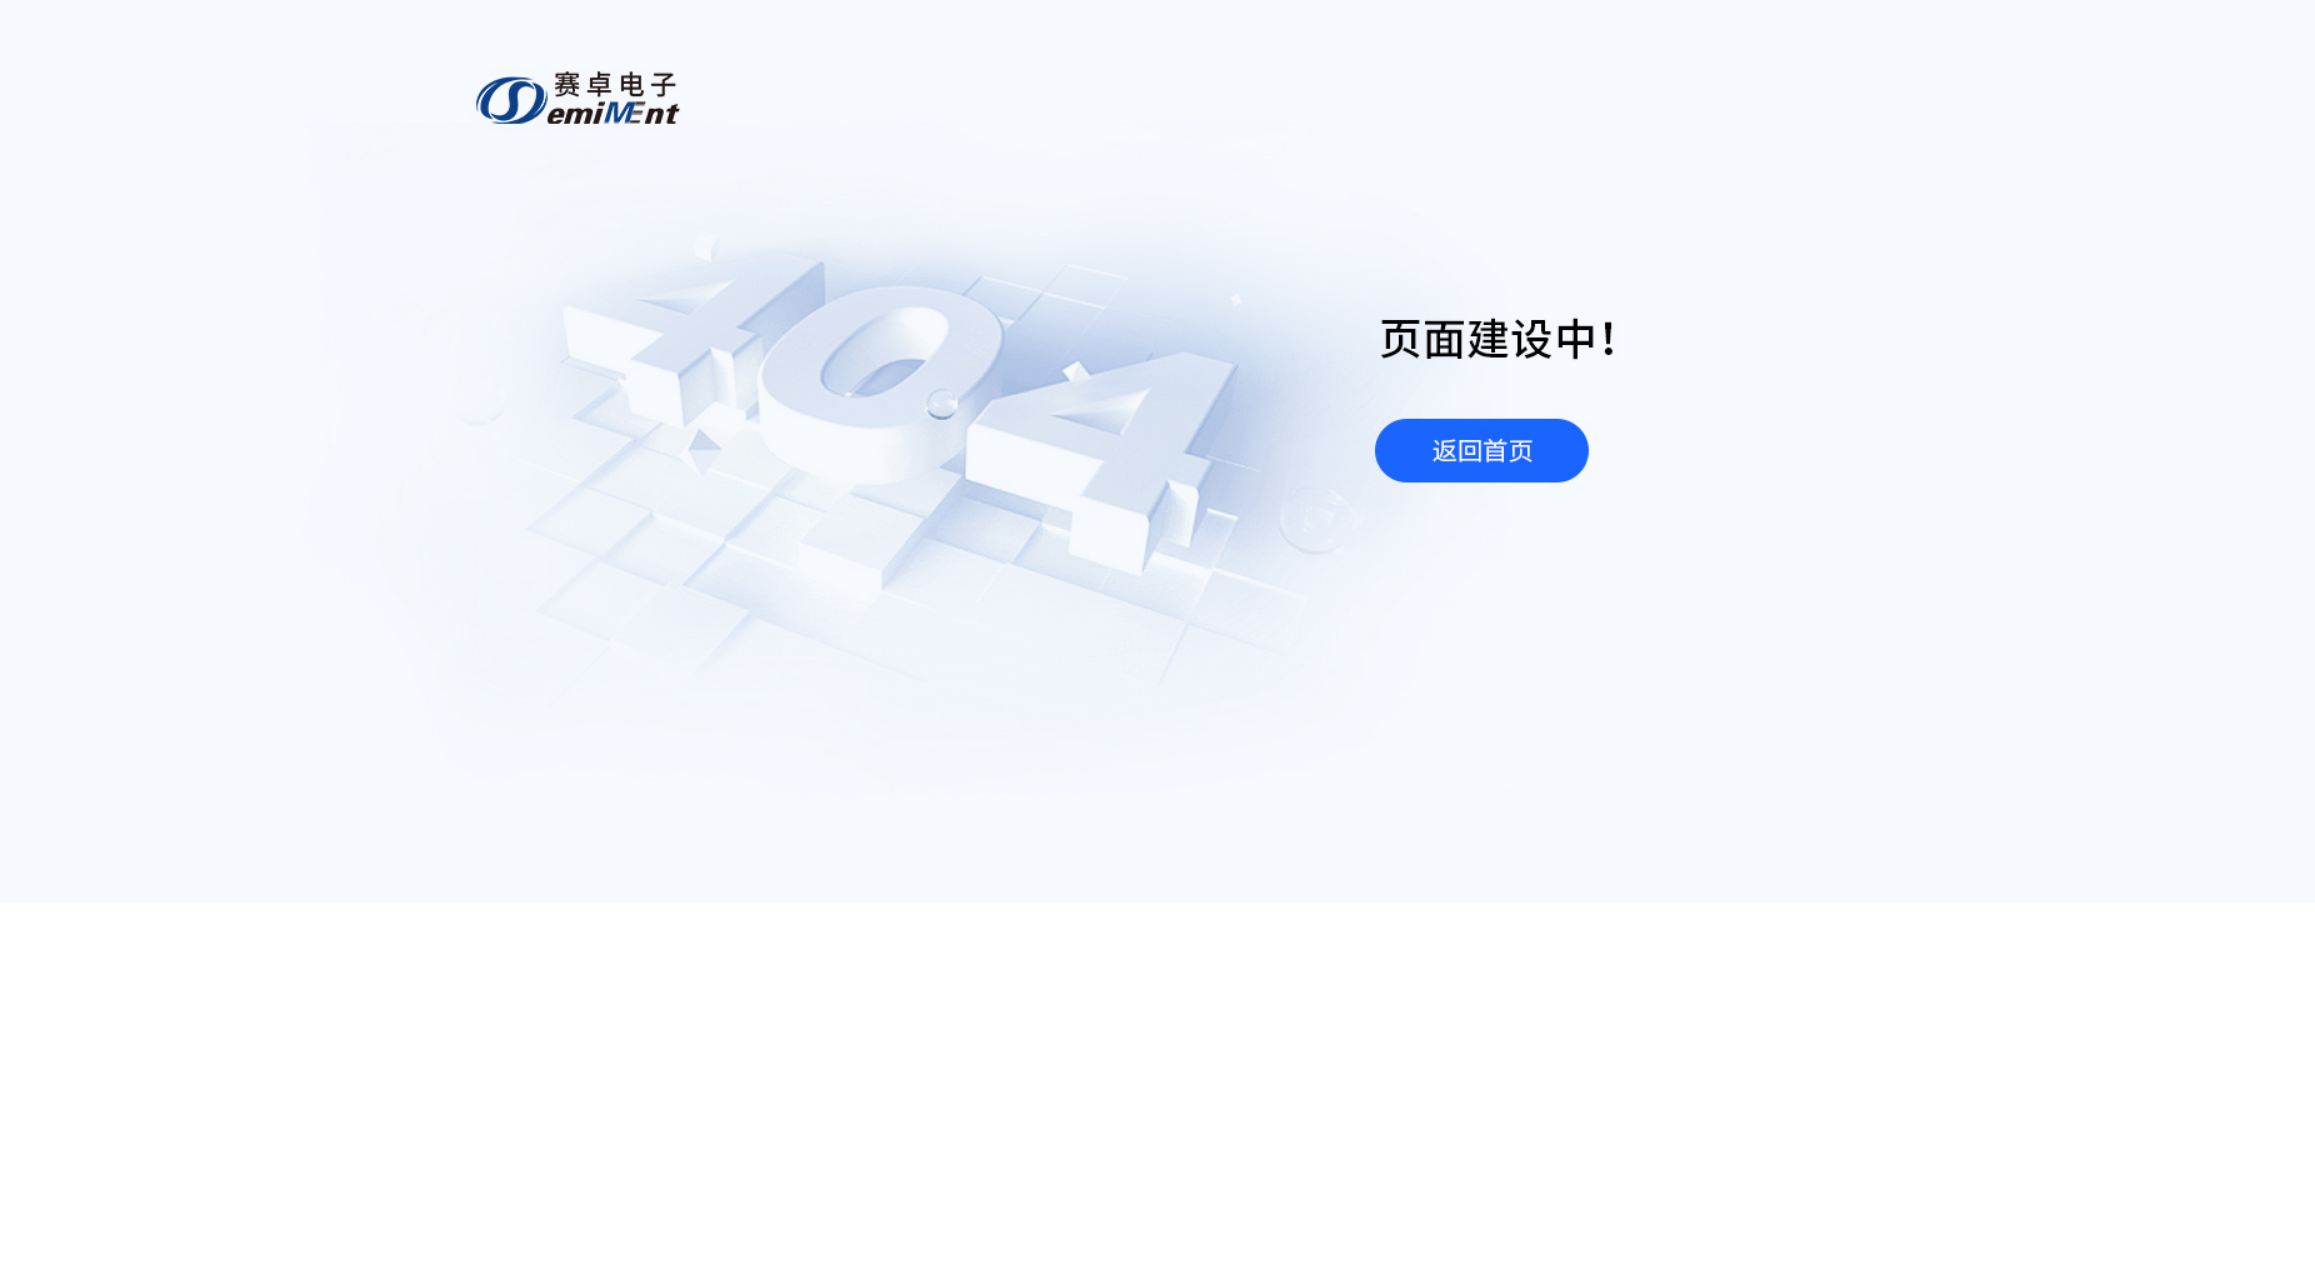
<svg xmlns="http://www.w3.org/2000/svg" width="2315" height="1280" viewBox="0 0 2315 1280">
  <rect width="100%" height="100%" fill="rgb(255,255,255)"/>
  <image x="0" y="0" width="2315" height="903" href="pic1.png"/>
</svg>
